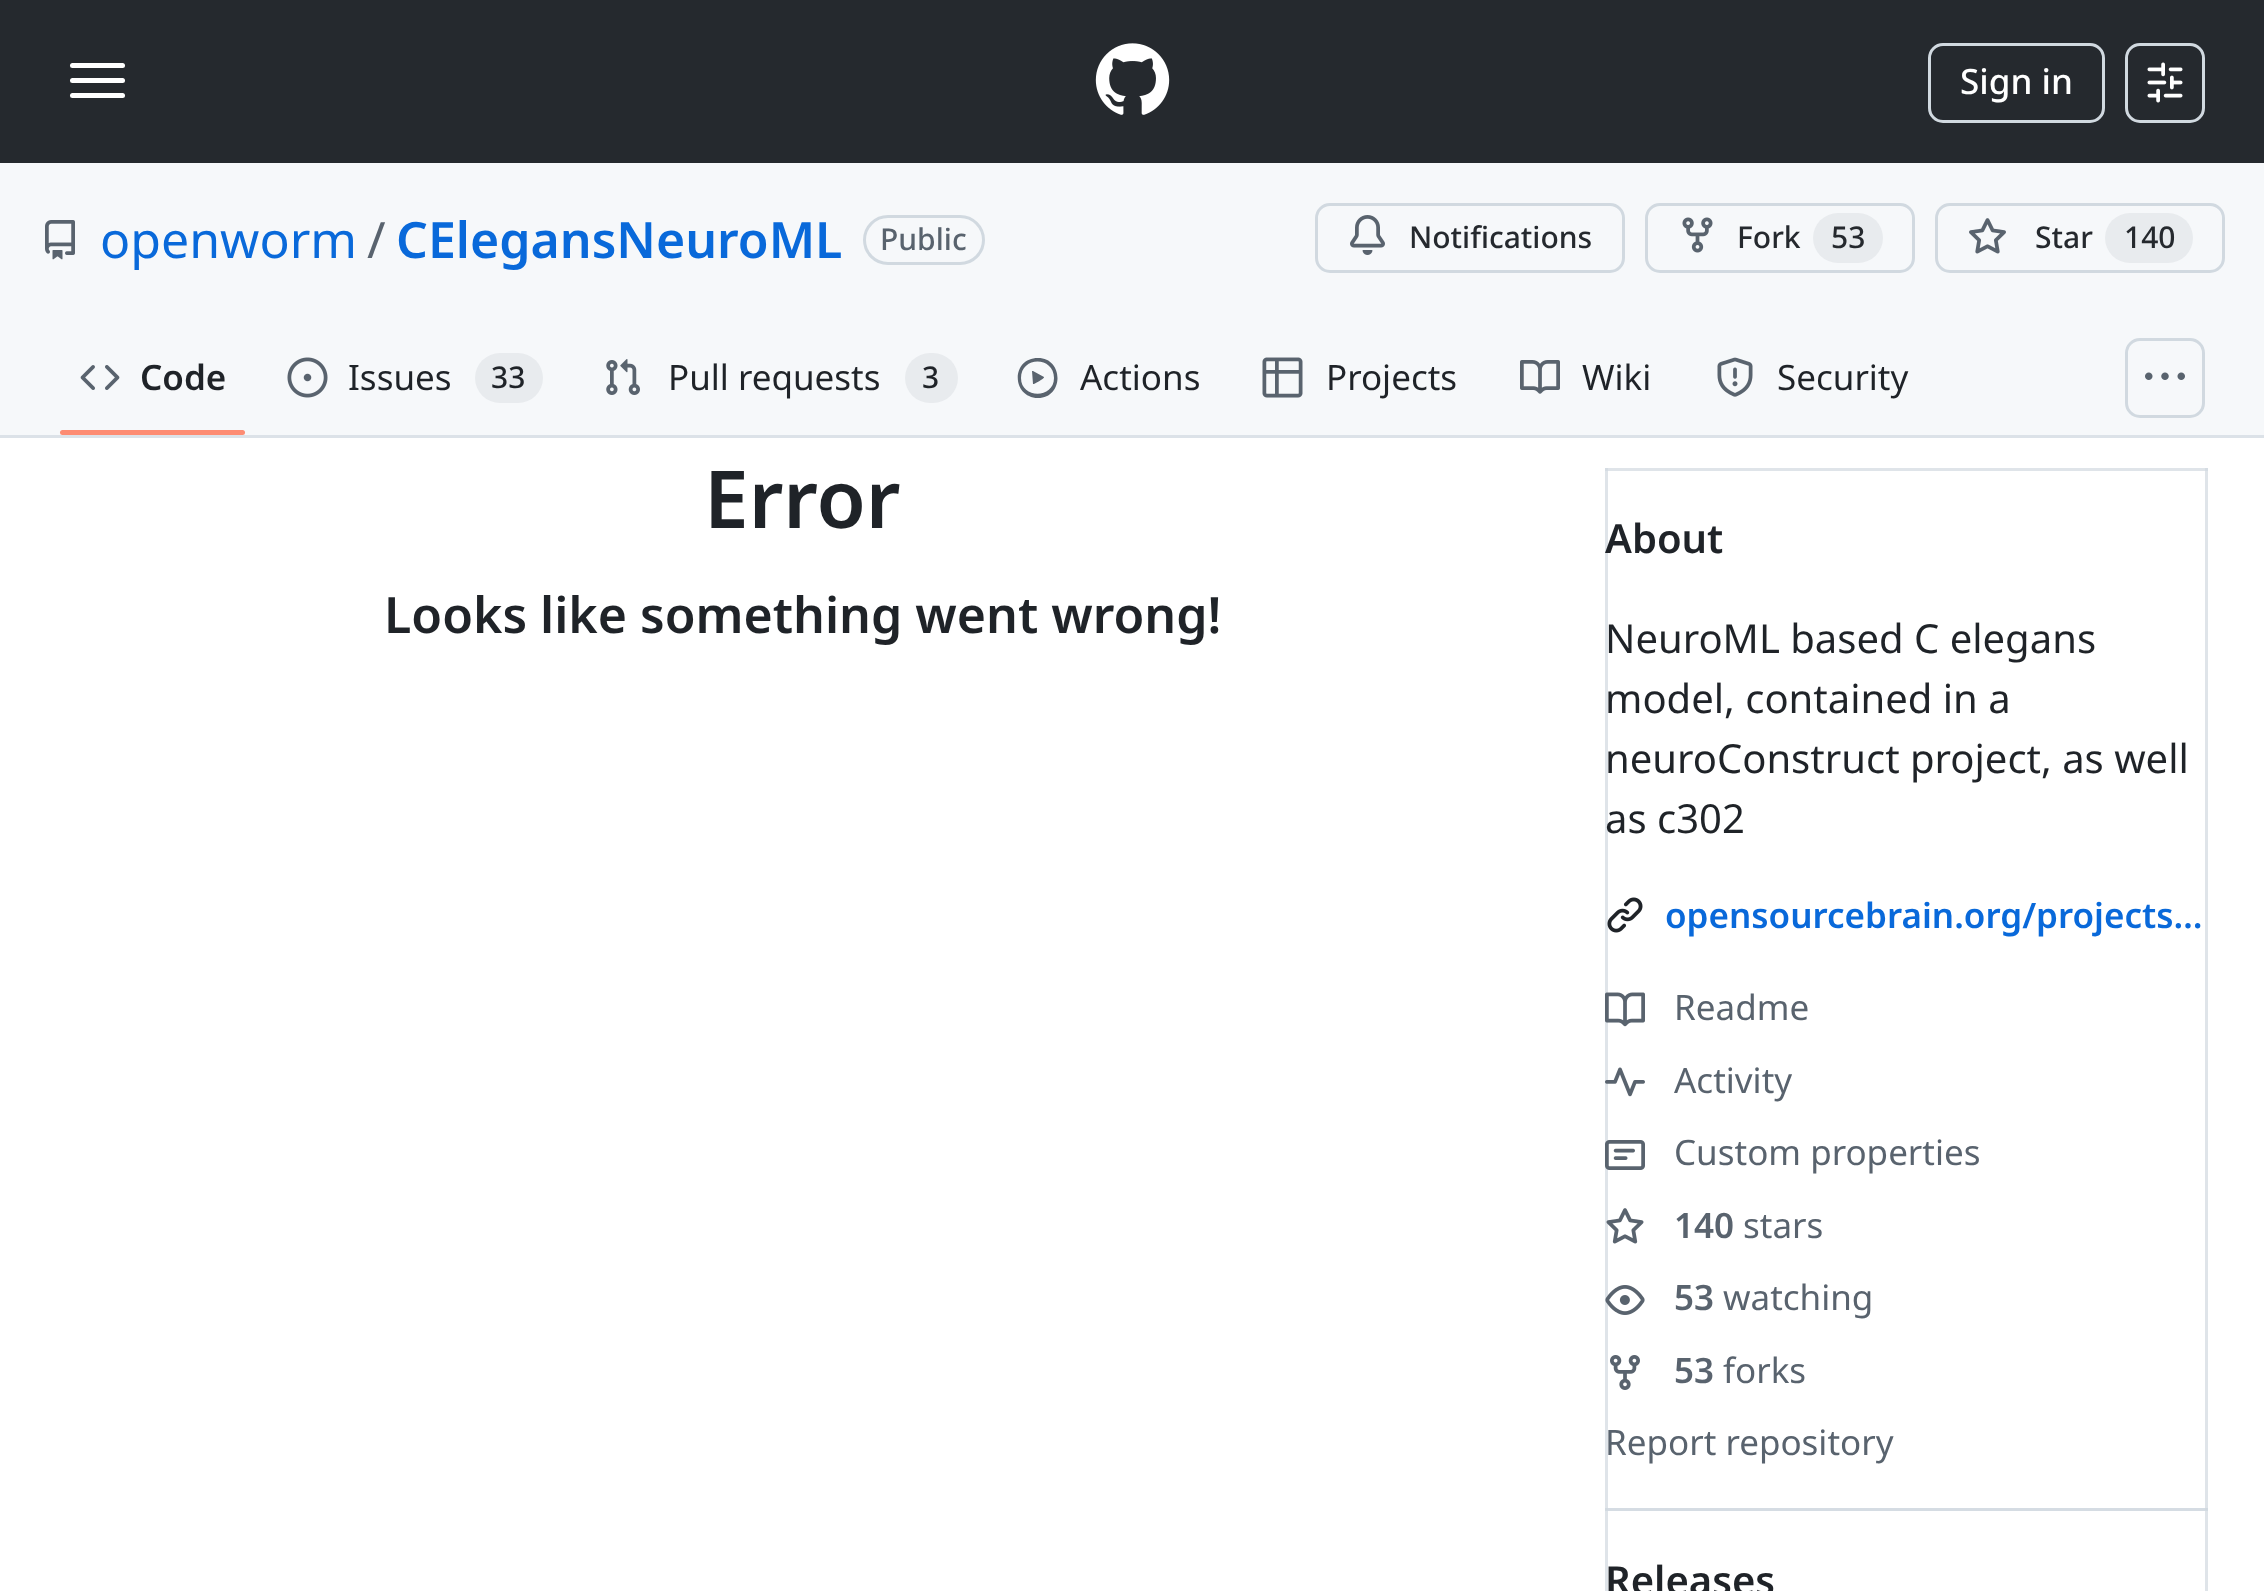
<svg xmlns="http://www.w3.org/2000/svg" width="2264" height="1591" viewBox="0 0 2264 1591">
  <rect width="100%" height="100%" fill="rgb(255,255,255)"/>
  <rect x="1605" y="468" width="3" height="1123" fill="rgb(223,228,233)"/>
  <rect x="2205" y="468" width="3" height="1123" fill="rgb(223,228,233)"/>
  <rect x="0" y="0" width="2264" height="163" fill="rgb(37,41,46)"/>
  <rect x="70" y="63" width="55" height="5" rx="2.5" fill="rgb(255,255,255)"/>
  <rect x="70" y="78" width="55" height="5" rx="2.5" fill="rgb(255,255,255)"/>
  <rect x="70" y="93" width="55" height="5" rx="2.5" fill="rgb(255,255,255)"/>
  <image x="1095" y="43" width="75" height="72" href="pic1.png"/>
  <rect x="1929.5" y="44.5" width="174" height="77" rx="13.5" fill="none" stroke="rgb(209,217,224)" stroke-width="3"/>
  <text x="1960" y="94" font-family="Noto Sans" font-size="35" font-weight="500" fill="rgb(255,255,255)">Sign in</text>
  <rect x="2126.5" y="44.5" width="77" height="77" rx="13.5" fill="none" stroke="rgb(209,217,224)" stroke-width="3"/>
  <image x="2147" y="62" width="36" height="41" href="pic2.png"/>
  <rect x="0" y="163" width="2264" height="272" fill="rgb(246,248,250)"/>
  <image x="45" y="220" width="30" height="40" href="pic3.png"/>
  <text x="100" y="258" font-family="Noto Sans" font-size="50" fill="rgb(9,105,218)">openworm</text>
  <text x="367" y="258" font-family="Noto Sans" font-size="50" fill="rgb(89,99,110)">/</text>
  <text x="396" y="258" font-family="Noto Sans" font-size="50" font-weight="600" fill="rgb(9,105,218)">CElegansNeuroML</text>
  <rect x="864.5" y="216.5" width="119" height="47" rx="23.5" fill="none" stroke="rgb(209,217,224)" stroke-width="3"/>
  <text x="880" y="250" font-family="Noto Sans" font-size="30" font-weight="500" fill="rgb(89,99,110)">Public</text>
  <rect x="1316.5" y="204.5" width="307" height="67" rx="13.5" fill="none" stroke="rgb(209,217,224)" stroke-width="3"/>
  <image x="1350" y="215" width="35" height="40" href="pic4.png"/>
  <text x="1409" y="248" font-family="Noto Sans" font-size="30" font-weight="500" fill="rgb(37,41,46)">Notifications</text>
  <rect x="1646.5" y="204.5" width="267" height="67" rx="13.5" fill="none" stroke="rgb(209,217,224)" stroke-width="3"/>
  <image x="1682" y="217" width="31" height="36" href="pic5.png"/>
  <text x="1737" y="248" font-family="Noto Sans" font-size="30" font-weight="500" fill="rgb(37,41,46)">Fork</text>
  <rect x="1813" y="213" width="70" height="50" rx="25" fill="rgb(232,235,238)"/>
  <text x="1831" y="248" font-family="Noto Sans" font-size="30" font-weight="500" fill="rgb(37,41,46)">53</text>
  <rect x="1936.5" y="204.5" width="287" height="67" rx="13.5" fill="none" stroke="rgb(209,217,224)" stroke-width="3"/>
  <image x="1969" y="218" width="37" height="36" href="pic6.png"/>
  <text x="2035" y="248" font-family="Noto Sans" font-size="30" font-weight="500" fill="rgb(37,41,46)">Star</text>
  <rect x="2105" y="213" width="88" height="50" rx="25" fill="rgb(232,235,238)"/>
  <text x="2124" y="248" font-family="Noto Sans" font-size="30" font-weight="500" fill="rgb(37,41,46)">140</text>
  <rect x="0" y="435" width="2264" height="3" fill="rgb(220,226,232)"/>
  <image x="80" y="365" width="40" height="25" href="pic7.png"/>
  <text x="140" y="390" font-family="Noto Sans" font-size="35" font-weight="600" fill="rgb(31,35,40)">Code</text>
  <rect x="60" y="430" width="185" height="5" rx="2.5" fill="rgb(253,140,115)"/>
  <image x="287" y="357" width="41" height="41" href="pic8.png"/>
  <text x="348" y="390" font-family="Noto Sans" font-size="35" fill="rgb(31,35,40)">Issues</text>
  <rect x="475" y="353" width="68" height="50" rx="25" fill="rgb(232,235,238)"/>
  <text x="491" y="388" font-family="Noto Sans" font-size="30" font-weight="500" fill="rgb(31,35,40)">33</text>
  <image x="606" y="359" width="34" height="36" href="pic9.png"/>
  <text x="668" y="390" font-family="Noto Sans" font-size="35" fill="rgb(31,35,40)">Pull requests</text>
  <rect x="905" y="353" width="53" height="50" rx="25" fill="rgb(232,235,238)"/>
  <text x="922" y="388" font-family="Noto Sans" font-size="30" font-weight="500" fill="rgb(31,35,40)">3</text>
  <path d="M1038 358C1064 358 1064 398 1038 398C1011 397 1011 358 1038 358ZM1021 378C1021 399 1054 399 1054 378C1054 356 1021 356 1021 378ZM1033 371L1044 377C1045 378 1033 385 1033 384L1032 371Z" fill="rgb(89,99,110)"/>
  <text x="1080" y="390" font-family="Noto Sans" font-size="35" fill="rgb(31,35,40)">Actions</text>
  <image x="1262" y="357" width="41" height="41" href="pic10.png"/>
  <text x="1326" y="390" font-family="Noto Sans" font-size="35" fill="rgb(31,35,40)">Projects</text>
  <image x="1520" y="360" width="40" height="34" href="pic11.png"/>
  <text x="1582" y="390" font-family="Noto Sans" font-size="35" fill="rgb(31,35,40)">Wiki</text>
  <image x="1717" y="357" width="36" height="40" href="pic12.png"/>
  <text x="1777" y="390" font-family="Noto Sans" font-size="35" fill="rgb(31,35,40)">Security</text>
  <rect x="2126.5" y="339.5" width="77" height="77" rx="13.5" fill="none" stroke="rgb(209,217,224)" stroke-width="3"/>
  <image x="2145" y="372" width="40" height="8" href="pic13.png"/>
  <text x="704" y="528" font-family="Noto Sans" font-size="80" font-weight="600" fill="rgb(31,35,40)">Error</text>
  <text x="384" y="633" font-family="Noto Sans" font-size="50" font-weight="600" fill="rgb(31,35,40)">Looks like something went wrong!</text>
  <rect x="1605" y="468" width="603" height="3" fill="rgb(223,228,233)"/>
  <rect x="1605" y="468" width="3" height="3" fill="rgb(213,220,227)"/>
  <rect x="2205" y="468" width="3" height="3" fill="rgb(213,220,227)"/>
  <text x="1605" y="553" font-family="Noto Sans" font-size="40" font-weight="600" fill="rgb(31,35,40)">About</text>
  <g font-family="Noto Sans" font-size="40" fill="rgb(31,35,40)">
    <text>
      <tspan x="1605" y="653">NeuroML based C elegans</tspan>
      <tspan x="1605" y="713">model, contained in a</tspan>
      <tspan x="1605" y="773">neuroConstruct project, as well</tspan>
      <tspan x="1605" y="833">as c302</tspan>
    </text>
  </g>
  <image x="1607" y="897" width="36" height="36" href="pic14.png"/>
  <text x="1665" y="928" font-family="Noto Sans" font-size="35" font-weight="600" fill="rgb(9,105,218)">opensourcebrain.org/projects…</text>
  <image x="1605" y="992" width="40" height="35" href="pic15.png"/>
  <text x="1674" y="1020" font-family="Noto Sans" font-size="35" fill="rgb(89,99,110)">Readme</text>
  <image x="1605" y="1067" width="40" height="30" href="pic16.png"/>
  <text x="1674" y="1093" font-family="Noto Sans" font-size="35" fill="rgb(89,99,110)">Activity</text>
  <image x="1605" y="1140" width="40" height="30" href="pic17.png"/>
  <text x="1674" y="1165" font-family="Noto Sans" font-size="35" fill="rgb(89,99,110)">Custom properties</text>
  <image x="1606" y="1208" width="38" height="36" href="pic18.png"/>
  <text x="1674" y="1238" font-family="Noto Sans" font-size="35" font-weight="600" fill="rgb(89,99,110)">140</text>
  <text x="1743" y="1238" font-family="Noto Sans" font-size="35" fill="rgb(89,99,110)">stars</text>
  <image x="1605" y="1285" width="40" height="30" href="pic19.png"/>
  <text x="1674" y="1310" font-family="Noto Sans" font-size="35" font-weight="600" fill="rgb(89,99,110)">53</text>
  <text x="1723" y="1310" font-family="Noto Sans" font-size="35" fill="rgb(89,99,110)">watching</text>
  <image x="1610" y="1355" width="30" height="35" href="pic20.png"/>
  <text x="1674" y="1383" font-family="Noto Sans" font-size="35" font-weight="600" fill="rgb(89,99,110)">53</text>
  <g font-family="Noto Sans" font-size="35" fill="rgb(89,99,110)">
    <text x="1723" y="1383">forks</text>
    <text x="1605" y="1455">Report repository</text>
  </g>
  <rect x="1605" y="1508" width="603" height="3" fill="rgb(213,220,227)"/>
  <rect x="1605" y="1510" width="3" height="1" fill="rgb(210,218,225)"/>
  <rect x="1605" y="1508" width="3" height="2" fill="rgb(209,217,224)"/>
  <rect x="2205" y="1510" width="3" height="1" fill="rgb(210,218,225)"/>
  <rect x="2205" y="1508" width="3" height="2" fill="rgb(209,217,224)"/>
  <text x="1605" y="1595" font-family="Noto Sans" font-size="40" font-weight="600" fill="rgb(31,35,40)">Releases</text>
</svg>
